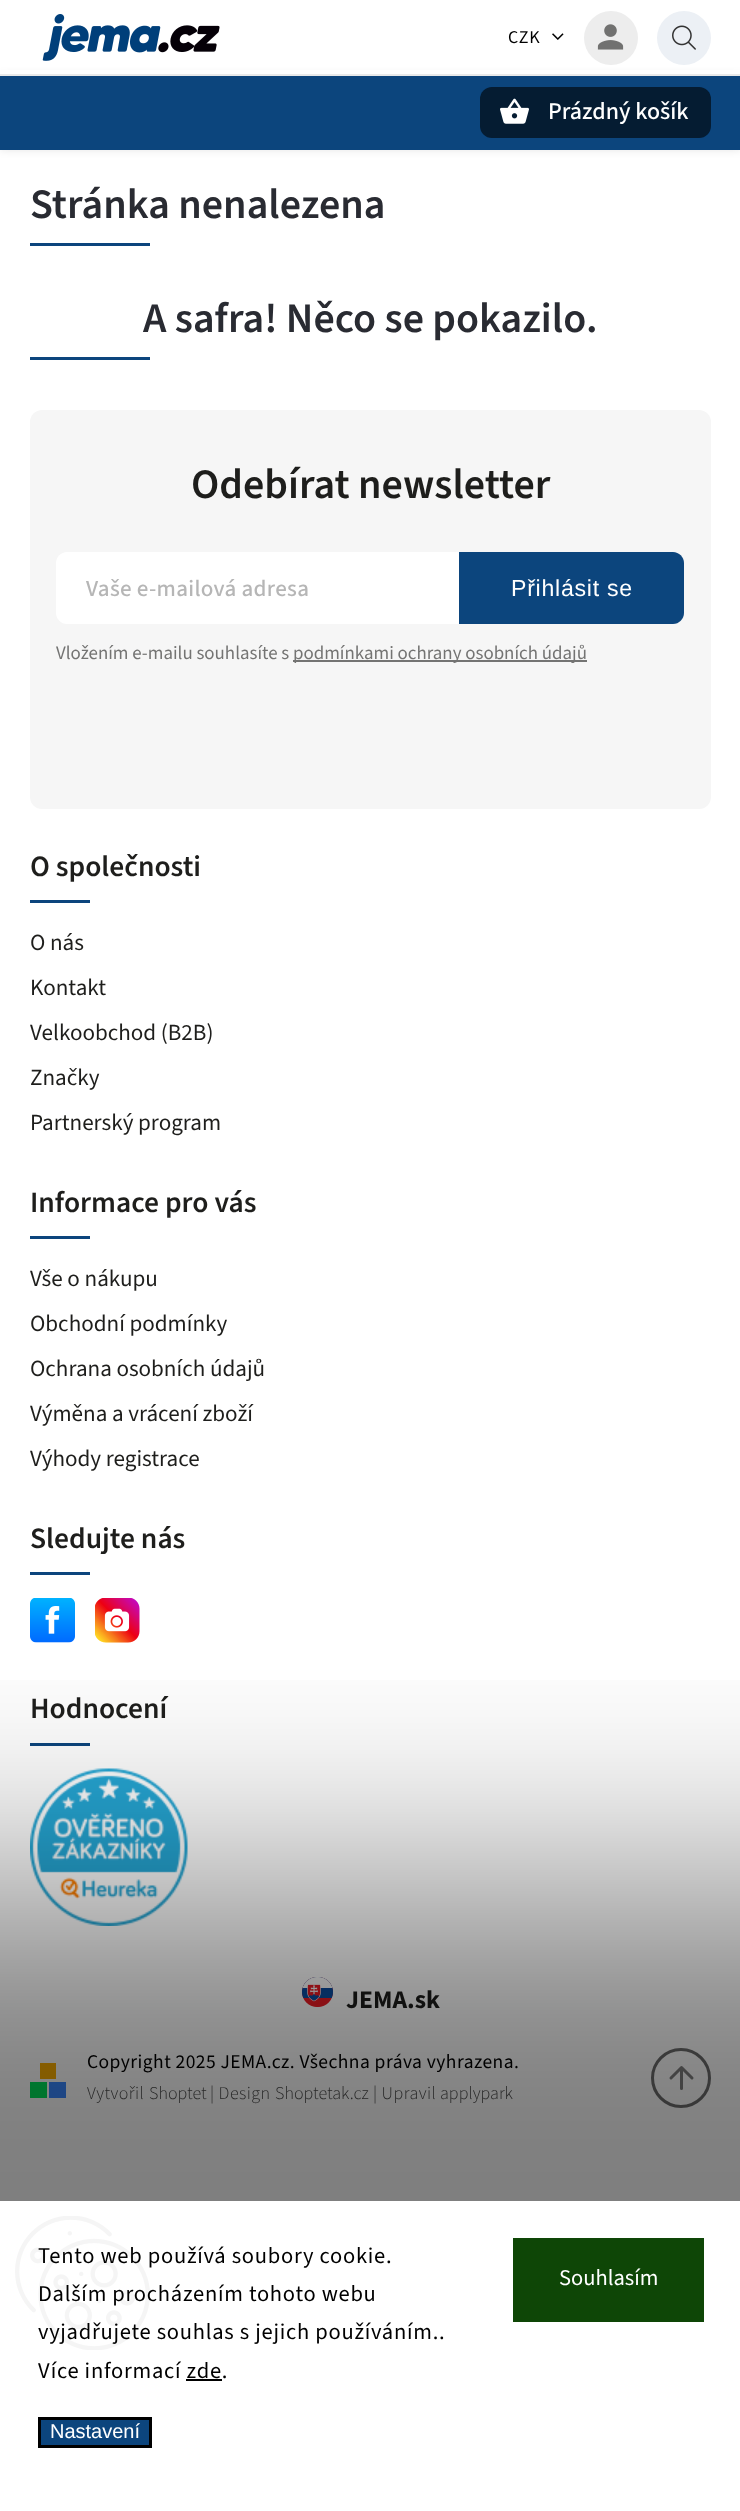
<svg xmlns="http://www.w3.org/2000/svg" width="740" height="2511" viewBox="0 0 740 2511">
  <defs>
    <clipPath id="clip1"><rect x="86" y="572" width="345" height="33"/></clipPath>
    <clipPath id="clip2"><rect x="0" y="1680" width="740" height="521"/></clipPath>
  </defs>
  <rect width="100%" height="100%" fill="rgb(255,255,255)"/>
  <rect x="0" y="75" width="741" height="75" fill="rgba(0,0,0,0.1)" filter="blur(4px)"/>
  <rect x="0" y="70" width="740" height="4" fill="rgb(255,255,255)"/>
  <rect x="0" y="74" width="740" height="2" fill="rgb(234,234,234)"/>
  <image x="42" y="14" width="178" height="47" href="pic1.png"/>
  <text x="508" y="43" font-family="'Source Sans 3'" font-size="18" letter-spacing="0.75" fill="rgb(0,0,0)">CZK</text>
  <image x="552" y="33" width="12" height="7" href="pic2.png"/>
  <circle cx="611" cy="38" r="27" fill="rgb(237,237,237)"/>
  <image x="597" y="24" width="27" height="26" href="pic3.png"/>
  <circle cx="684" cy="38" r="27" fill="rgb(236,240,245)"/>
  <image x="672" y="25" width="24" height="25" href="pic4.png"/>
  <rect x="0" y="76" width="740" height="74" fill="rgb(12,69,125)"/>
  <rect x="480" y="87" width="231" height="51" rx="12" fill="rgb(5,28,50)"/>
  <image x="500" y="98" width="29" height="26" href="pic5.png"/>
  <text x="548" y="119" font-family="'Source Sans 3'" font-size="24" font-weight="500" fill="rgb(255,255,255)">Prázdný košík</text>
  <text x="30" y="218" font-family="'Source Sans 3'" font-size="42" font-weight="600" fill="rgb(41,43,50)">Stránka nenalezena</text>
  <rect x="30" y="243" width="120" height="3" fill="rgb(12,69,125)"/>
  <text x="143" y="332" font-family="'Source Sans 3'" font-size="42" font-weight="600" fill="rgb(41,43,50)">A safra! Něco se pokazilo.</text>
  <rect x="30" y="357" width="120" height="3" fill="rgb(12,69,125)"/>
  <rect x="30" y="410" width="681" height="399" rx="12" fill="rgb(246,246,246)"/>
  <text x="191" y="498" font-family="'Source Sans 3'" font-size="42" font-weight="600" fill="rgb(30,30,28)">Odebírat newsletter</text>
  <path d="M67 552H461V624H67C61 624 56 619 56 613V563C56 557 61 552 67 552Z" fill="rgb(255,255,255)"/>
  <g clip-path="url(#clip1)">
    <text x="86" y="596" font-family="'Source Sans 3'" font-size="23.1" font-weight="500" letter-spacing="0.3" fill="rgb(182,182,182)">Vaše e-mailová adresa</text>
  </g>
  <path d="M459 552H673C679 552 684 557 684 563V613C684 619 679 624 673 624H459Z" fill="rgb(12,69,125)"/>
  <text x="511" y="596" font-family="Liberation Sans" font-size="23.1" letter-spacing="0.75" fill="rgb(255,255,255)">Přihlásit se</text>
  <text x="56" y="659" font-family="'Source Sans 3'" font-size="18.9" fill="rgb(116,116,115)">Vložením e-mailu souhlasíte s</text>
  <rect x="293" y="660" width="294" height="2" fill="rgb(116,116,115)"/>
  <text x="293" y="659" font-family="'Source Sans 3'" font-size="18.9" fill="rgb(116,116,115)">podmínkami ochrany osobních údajů</text>
  <text x="30" y="876" font-family="'Source Sans 3'" font-size="29.5" font-weight="600" fill="rgb(30,30,28)">O společnosti</text>
  <rect x="30" y="900" width="60" height="3" fill="rgb(12,69,125)"/>
  <g font-family="'Source Sans 3'" font-size="23.1" fill="rgb(30,30,28)">
    <text>
      <tspan x="30" y="950">O nás</tspan>
      <tspan x="30" y="995">Kontakt</tspan>
      <tspan x="30" y="1040">Velkoobchod (B2B)</tspan>
      <tspan x="30" y="1085">Značky</tspan>
      <tspan x="30" y="1130">Partnerský program</tspan>
    </text>
  </g>
  <text x="30" y="1212" font-family="'Source Sans 3'" font-size="29.5" font-weight="600" fill="rgb(30,30,28)">Informace pro vás</text>
  <rect x="30" y="1236" width="60" height="3" fill="rgb(12,69,125)"/>
  <g font-family="'Source Sans 3'" font-size="23.1" fill="rgb(30,30,28)">
    <text>
      <tspan x="30" y="1286">Vše o nákupu</tspan>
      <tspan x="30" y="1331">Obchodní podmínky</tspan>
      <tspan x="30" y="1376">Ochrana osobních údajů</tspan>
      <tspan x="30" y="1421">Výměna a vrácení zboží</tspan>
      <tspan x="30" y="1466">Výhody registrace</tspan>
    </text>
  </g>
  <text x="30" y="1548" font-family="'Source Sans 3'" font-size="29.5" font-weight="600" fill="rgb(30,30,28)">Sledujte nás</text>
  <rect x="30" y="1572" width="60" height="3" fill="rgb(12,69,125)"/>
  <image x="30" y="1598" width="45" height="45" href="pic6.png"/>
  <image x="95" y="1598" width="45" height="45" href="pic7.png"/>
  <text x="30" y="1718" font-family="'Source Sans 3'" font-size="29.5" font-weight="600" fill="rgb(30,30,28)">Hodnocení</text>
  <rect x="30" y="1743" width="60" height="3" fill="rgb(12,69,125)"/>
  <image x="30" y="1768" width="158" height="158" href="pic8.png"/>
  <image x="302" y="1977" width="31" height="30" href="pic9.png"/>
  <text x="346" y="2008" font-family="'Source Sans 3'" font-size="25.5" font-weight="bold" fill="rgb(30,30,28)">JEMA.sk</text>
  <rect x="40" y="2063" width="16" height="16" fill="rgb(252,175,0)"/>
  <rect x="30" y="2082" width="17" height="16" fill="rgb(0,226,90)"/>
  <rect x="49" y="2082" width="17" height="16" fill="rgb(59,136,255)"/>
  <text x="87" y="2068" font-family="'Source Sans 3'" font-size="19.5" letter-spacing="0.45" fill="rgb(0,0,0)">Copyright 2025 JEMA.cz. Všechna práva vyhrazena.</text>
  <text x="87" y="2099" font-family="'Source Sans 3'" font-size="18" font-weight="300" letter-spacing="0.45" fill="rgb(78,78,78)">Vytvořil</text>
  <text x="149" y="2099" font-family="'Source Sans 3'" font-size="18" font-weight="300" fill="rgb(78,78,78)">Shoptet</text>
  <text x="210" y="2099" font-family="'Source Sans 3'" font-size="18" font-weight="300" letter-spacing="0.45" fill="rgb(78,78,78)">| Design</text>
  <text x="275" y="2099" font-family="'Source Sans 3'" font-size="18" font-weight="300" fill="rgb(78,78,78)">Shoptetak.cz</text>
  <text x="373" y="2099" font-family="'Source Sans 3'" font-size="18" font-weight="300" letter-spacing="0.45" fill="rgb(78,78,78)">| Upravil</text>
  <text x="440" y="2099" font-family="'Source Sans 3'" font-size="18" font-weight="300" fill="rgb(78,78,78)">applypark</text>
  <circle cx="681" cy="2078" r="28.5" fill="none" stroke="rgb(109,109,109)" stroke-width="3"/>
  <path d="M681.5 2088.5V2067.5M671 2078L681.5 2067.5L692 2078" fill="none" stroke="rgb(128,128,128)" stroke-width="3" stroke-linecap="round" stroke-linejoin="round"/>
  <g clip-path="url(#clip2)">
    <rect x="-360" y="1890" width="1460" height="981" fill="rgba(0,0,0,0.5)" filter="blur(120px)"/>
  </g>
  <image x="15" y="2216" width="135" height="134" href="pic10.png"/>
  <g font-family="'Source Sans 3'" font-size="22.5" letter-spacing="0.75" fill="rgb(0,0,0)">
    <text>
      <tspan x="38" y="2263">Tento web používá soubory cookie.</tspan>
      <tspan x="38" y="2301">Dalším procházením tohoto webu</tspan>
      <tspan x="38" y="2339">vyjadřujete souhlas s jejich používáním..</tspan>
      <tspan x="38" y="2378">Více informací zde.</tspan>
    </text>
  </g>
  <rect x="186" y="2379" width="36" height="2" fill="rgb(0,0,0)"/>
  <rect x="39.5" y="2418.5" width="111" height="28" fill="rgb(12,69,125)" stroke="rgb(0,0,0)" stroke-width="3"/>
  <text x="50" y="2438" font-family="Liberation Sans" font-size="20" fill="rgb(255,255,255)">Nastavení</text>
  <rect x="513" y="2238" width="191" height="84" fill="rgb(14,70,6)"/>
  <text x="559" y="2285" font-family="'Source Sans 3'" font-size="22.5" fill="rgb(255,255,255)">Souhlasím</text>
</svg>
